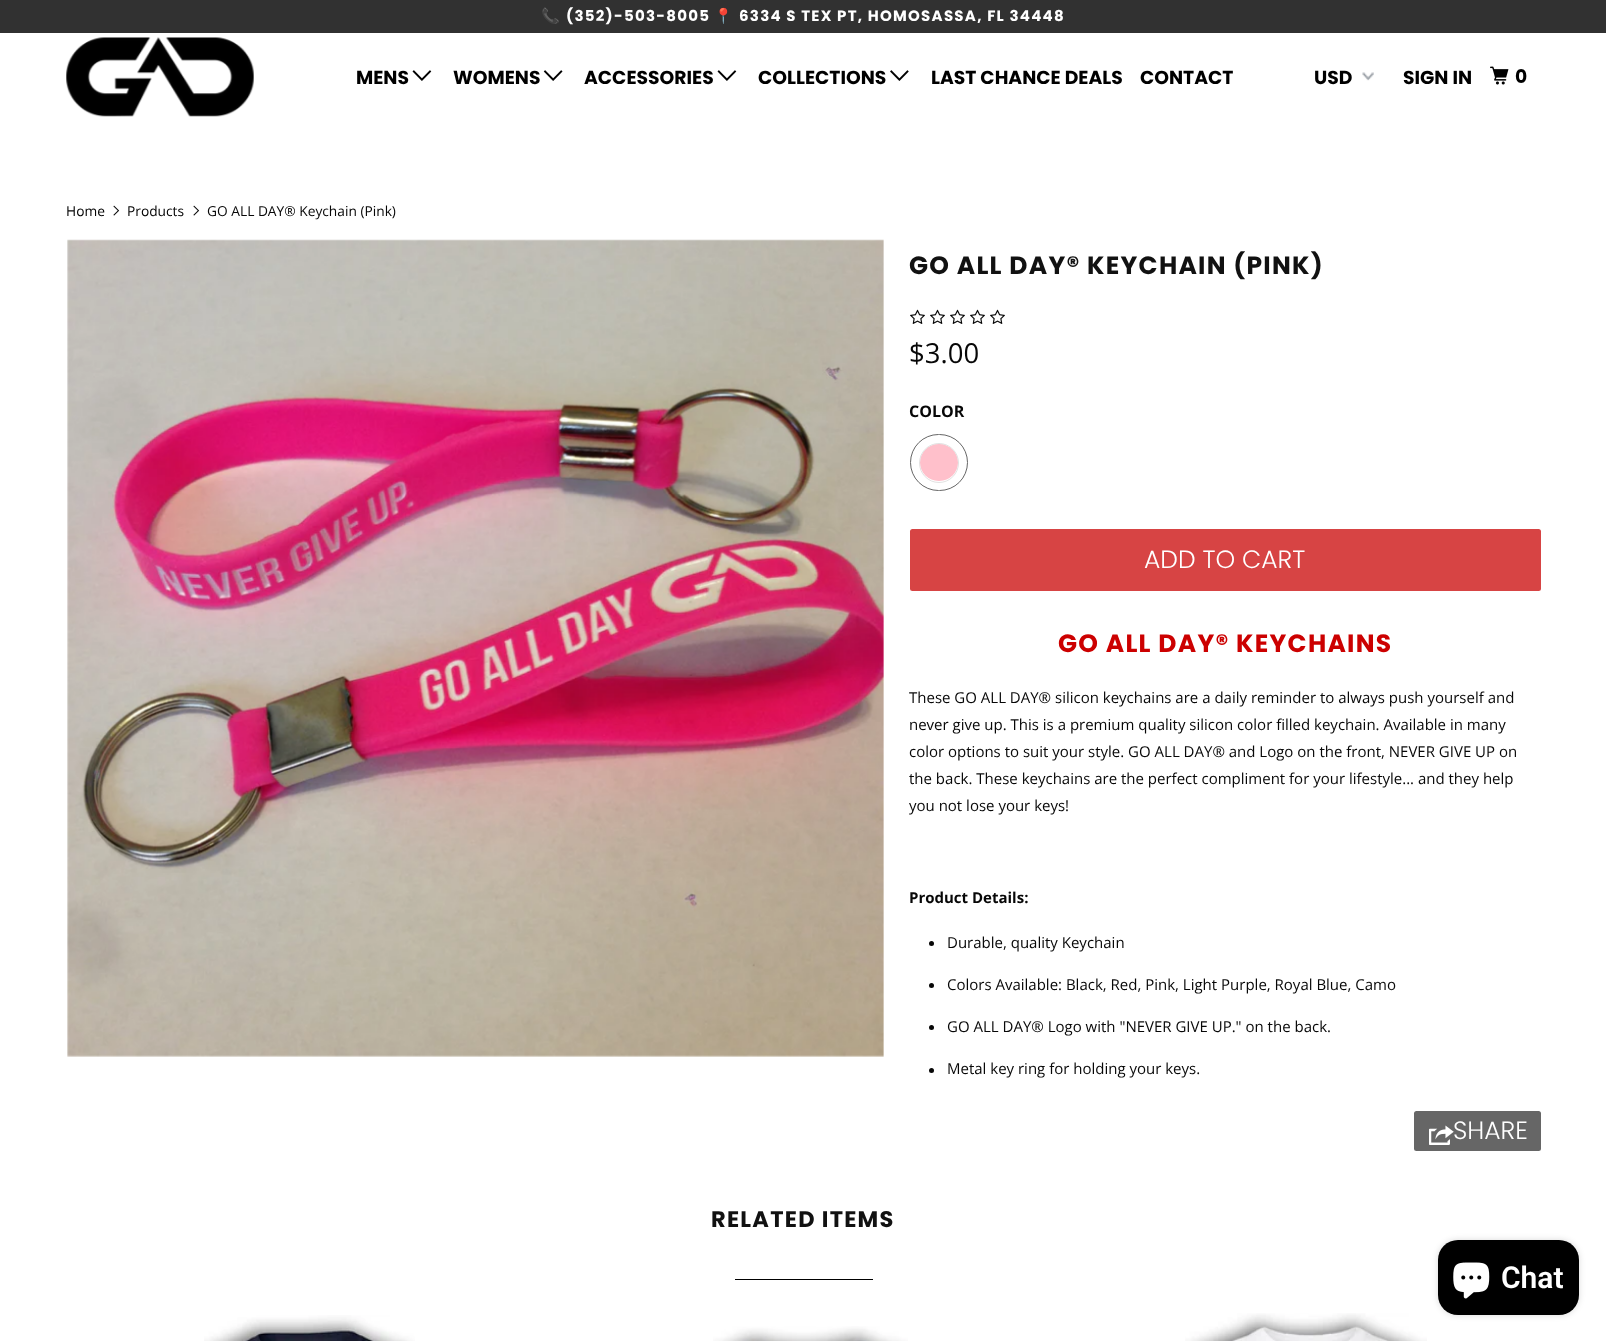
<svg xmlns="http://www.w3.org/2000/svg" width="1606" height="1341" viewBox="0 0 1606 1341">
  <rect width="100%" height="100%" fill="rgb(255,255,255)"/>
  <rect x="0" y="0" width="1606" height="33" fill="rgb(49,49,49)"/>
  <text x="541" y="21" font-family="Noto Color Emoji" font-size="15" font-weight="bold" letter-spacing="1.25" fill="rgb(255,255,255)">📞</text>
  <text x="566" y="21" font-family="Poppins" font-size="15" font-weight="bold" letter-spacing="1.25" fill="rgb(255,255,255)">(352)-503-8005</text>
  <text x="714" y="21" font-family="Noto Color Emoji" font-size="15" font-weight="bold" letter-spacing="1.25" fill="rgb(255,255,255)">📍</text>
  <text x="739" y="21" font-family="Poppins" font-size="15" font-weight="bold" letter-spacing="1.25" fill="rgb(255,255,255)">6334 S TEX PT, HOMOSASSA, FL 34448</text>
  <image x="66" y="37" width="188" height="80" href="pic1.png"/>
  <text x="356" y="84" font-family="Poppins" font-size="18.75" font-weight="bold" fill="rgb(0,0,0)">MENS</text>
  <image x="412" y="70" width="20" height="11" href="pic2.png"/>
  <text x="453" y="84" font-family="Poppins" font-size="18.75" font-weight="bold" fill="rgb(0,0,0)">WOMENS</text>
  <image x="543" y="70" width="20" height="11" href="pic3.png"/>
  <text x="584" y="84" font-family="Poppins" font-size="18.75" font-weight="bold" fill="rgb(0,0,0)">ACCESSORIES</text>
  <image x="717" y="70" width="20" height="11" href="pic2.png"/>
  <text x="758" y="84" font-family="Poppins" font-size="18.75" font-weight="bold" fill="rgb(0,0,0)">COLLECTIONS</text>
  <image x="890" y="70" width="19" height="11" href="pic4.png"/>
  <g font-family="Poppins" font-size="18.75" font-weight="bold" fill="rgb(0,0,0)">
    <text x="931" y="84">LAST CHANCE DEALS</text>
    <text x="1140" y="84">CONTACT</text>
  </g>
  <image x="1362" y="72" width="12" height="9" href="pic5.png"/>
  <g font-family="Poppins" font-size="18.75" font-weight="bold" fill="rgb(0,0,0)">
    <text x="1314" y="84">USD</text>
    <text x="1403" y="84">SIGN IN</text>
  </g>
  <image x="1490" y="66" width="19" height="19" href="pic6.png"/>
  <text x="1515" y="83" font-family="Poppins" font-size="18.75" font-weight="bold" fill="rgb(0,0,0)">0</text>
  <text x="66" y="216" font-family="Open Sans" font-size="13.75" fill="rgb(0,0,0)">Home</text>
  <image x="113" y="205" width="7" height="11" href="pic7.png"/>
  <text x="127" y="216" font-family="Open Sans" font-size="13.75" fill="rgb(0,0,0)">Products</text>
  <image x="193" y="205" width="7" height="11" href="pic7.png"/>
  <text x="207" y="216" font-family="Open Sans" font-size="13.75" fill="rgb(7,7,7)">GO ALL DAY® Keychain (Pink)</text>
  <image x="67" y="239" width="817" height="818" href="pic8.png"/>
  <text x="909" y="274" font-family="Poppins" font-size="25" font-weight="bold" letter-spacing="1.25" fill="rgb(17,17,17)">GO ALL DAY® KEYCHAIN (PINK)</text>
  <image x="910" y="309" width="15" height="15" href="pic9.png"/>
  <image x="930" y="309" width="15" height="15" href="pic9.png"/>
  <image x="950" y="309" width="15" height="15" href="pic9.png"/>
  <image x="970" y="309" width="15" height="15" href="pic9.png"/>
  <image x="990" y="309" width="15" height="15" href="pic9.png"/>
  <text x="909" y="363" font-family="Open Sans" font-size="27.5" fill="rgb(7,7,7)">$3.00</text>
  <text x="909" y="417" font-family="Open Sans" font-size="16" font-weight="bold" fill="rgb(7,7,7)">COLOR</text>
  <rect x="910.5" y="434.5" width="57" height="56" rx="28" fill="none" stroke="rgb(102,102,102)"/>
  <rect x="920" y="444" width="38" height="37" rx="18.5" fill="rgb(255,192,203)"/>
  <circle cx="939" cy="463" r="19.5" fill="none" stroke="rgb(226,226,226)"/>
  <rect x="910" y="529" width="631" height="62" rx="2.5" fill="rgb(215,68,68)"/>
  <text x="1144" y="568" font-family="Poppins" font-size="25" font-weight="300" fill="rgb(255,255,255)">ADD TO CART</text>
  <text x="1058" y="652" font-family="Poppins" font-size="25" font-weight="bold" letter-spacing="1.25" fill="rgb(204,0,0)">GO ALL DAY® KEYCHAINS</text>
  <g font-family="Open Sans" font-size="15" fill="rgb(7,7,7)">
    <text>
      <tspan x="909" y="703">These GO ALL DAY® silicon keychains are a daily reminder to always push yourself and</tspan>
      <tspan x="909" y="730">never give up. This is a premium quality silicon color filled keychain. Available in many</tspan>
      <tspan x="909" y="757">color options to suit your style. GO ALL DAY® and Logo on the front, NEVER GIVE UP on</tspan>
      <tspan x="909" y="784">the back. These keychains are the perfect compliment for your lifestyle... and they help</tspan>
      <tspan x="909" y="811">you not lose your keys!</tspan>
    </text>
  </g>
  <text x="909" y="903" font-family="Open Sans" font-size="15" font-weight="bold" fill="rgb(7,7,7)">Product Details:</text>
  <circle cx="931.5" cy="943.5" r="2.5" fill="rgb(7,7,7)"/>
  <text x="947" y="948" font-family="Open Sans" font-size="15" fill="rgb(7,7,7)">Durable, quality Keychain</text>
  <circle cx="931.5" cy="985.5" r="2.5" fill="rgb(7,7,7)"/>
  <text x="947" y="990" font-family="Open Sans" font-size="15" fill="rgb(7,7,7)">Colors Available: Black, Red, Pink, Light Purple, Royal Blue, Camo</text>
  <circle cx="931.5" cy="1027.5" r="2.5" fill="rgb(7,7,7)"/>
  <text x="947" y="1032" font-family="Open Sans" font-size="15" fill="rgb(7,7,7)">GO ALL DAY® Logo with "NEVER GIVE UP." on the back.</text>
  <circle cx="931.5" cy="1070.5" r="2.5" fill="rgb(7,7,7)"/>
  <text x="947" y="1074" font-family="Open Sans" font-size="15" fill="rgb(7,7,7)">Metal key ring for holding your keys.</text>
  <rect x="1414" y="1111" width="127" height="40" rx="2.5" fill="rgb(102,102,102)"/>
  <image x="1429" y="1125" width="25" height="20" href="pic10.png"/>
  <text x="1453" y="1139" font-family="Poppins" font-size="25" font-weight="300" fill="rgb(255,255,255)">SHARE</text>
  <text x="711" y="1227" font-family="Poppins" font-size="22.5" font-weight="bold" letter-spacing="1.25" fill="rgb(17,17,17)">RELATED ITEMS</text>
  <rect x="735" y="1279" width="138" height="1" fill="rgb(0,0,0)"/>
  <image x="204" y="1315" width="211" height="26" href="pic11.png"/>
  <image x="713" y="1326" width="195" height="15" href="pic12.png"/>
  <image x="1185" y="1313" width="242" height="28" href="pic13.png"/>
  <rect x="1438" y="1240" width="141" height="75" rx="20" fill="rgba(0,0,0,0.15)" filter="blur(3px)"/>
  <rect x="1438" y="1240" width="141" height="75" rx="20" fill="rgb(0,0,0)"/>
  <image x="1453" y="1262" width="37" height="37" href="pic14.png"/>
  <text x="1501" y="1288" font-family="Roboto" font-size="30" font-weight="600" fill="rgb(255,255,255)">Chat</text>
</svg>
